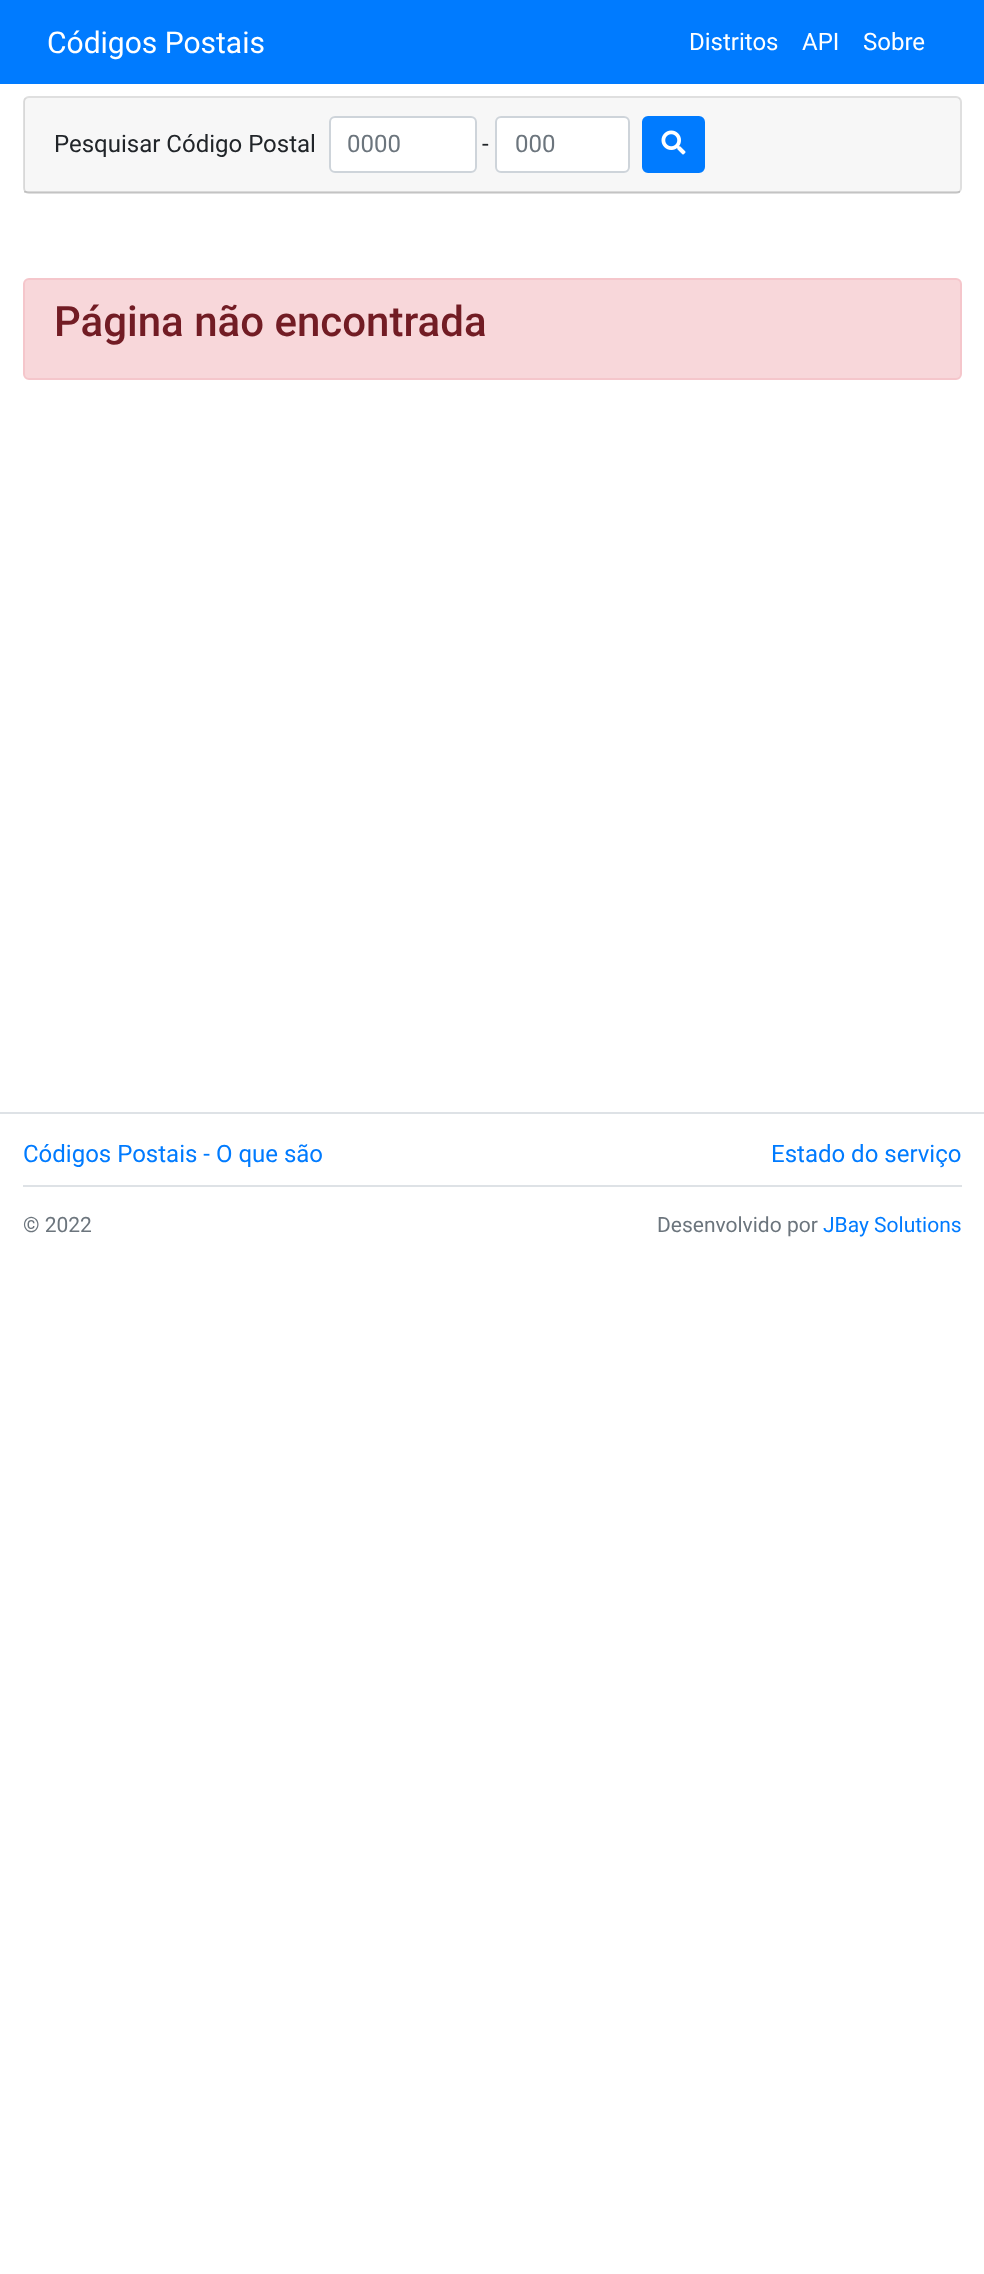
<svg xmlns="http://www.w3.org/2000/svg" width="984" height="2274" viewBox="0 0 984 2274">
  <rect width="100%" height="100%" fill="rgb(255,255,255)"/>
  <rect x="0" y="0" width="984" height="84" fill="rgb(0,123,255)"/>
  <text x="47" y="53" font-family="Roboto" font-size="30" fill="rgb(255,255,255)">Códigos Postais</text>
  <g font-family="Roboto" font-size="24" fill="rgb(255,255,255)">
    <text x="689" y="50">Distritos</text>
    <text x="802" y="50">API</text>
    <text x="863" y="50">Sobre</text>
  </g>
  <rect x="24" y="97" width="937" height="96" rx="5" fill="none" stroke="rgb(223,223,223)" stroke-width="2"/>
  <rect x="24" y="98" width="936" height="94" fill="rgba(0,0,0,0.03)"/>
  <rect x="24" y="191" width="936" height="2" fill="rgba(0,0,0,0.12)"/>
  <text x="54" y="152" font-family="Roboto" font-size="24" fill="rgb(33,37,41)">Pesquisar Código Postal</text>
  <rect x="330" y="117" width="146" height="55" rx="5" fill="rgb(255,255,255)" stroke="rgb(206,212,218)" stroke-width="2"/>
  <text x="347" y="152" font-family="Roboto" font-size="24" fill="rgb(108,117,125)">0000</text>
  <text x="482" y="152" font-family="Roboto" font-size="24" fill="rgb(33,37,41)">-</text>
  <rect x="496" y="117" width="133" height="55" rx="5" fill="rgb(255,255,255)" stroke="rgb(206,212,218)" stroke-width="2"/>
  <text x="515" y="152" font-family="Roboto" font-size="24" fill="rgb(108,117,125)">000</text>
  <rect x="643" y="117" width="61" height="55" rx="5" fill="rgb(0,123,255)" stroke="rgb(0,123,255)" stroke-width="2"/>
  <image x="661" y="130" width="25" height="25" href="pic1.png"/>
  <rect x="24" y="279" width="937" height="100" rx="5" fill="rgb(248,215,218)" stroke="rgb(245,198,203)" stroke-width="2"/>
  <text x="54" y="336" font-family="Roboto" font-size="42" font-weight="500" fill="rgb(114,28,36)">Página não encontrada</text>
  <rect x="0" y="1112" width="984" height="2" fill="rgb(222,226,230)"/>
  <g font-family="Roboto" font-size="24" fill="rgb(0,123,255)">
    <text x="23" y="1162">Códigos Postais - O que são</text>
    <text x="771" y="1162">Estado do serviço</text>
  </g>
  <rect x="23" y="1185" width="939" height="2" fill="rgb(222,226,230)"/>
  <g font-family="Roboto" font-size="21" fill="rgb(108,117,125)">
    <text x="23" y="1232">© 2022</text>
    <text x="657" y="1232">Desenvolvido por</text>
  </g>
  <text x="823" y="1232" font-family="Roboto" font-size="21" fill="rgb(0,123,255)">JBay Solutions</text>
</svg>
